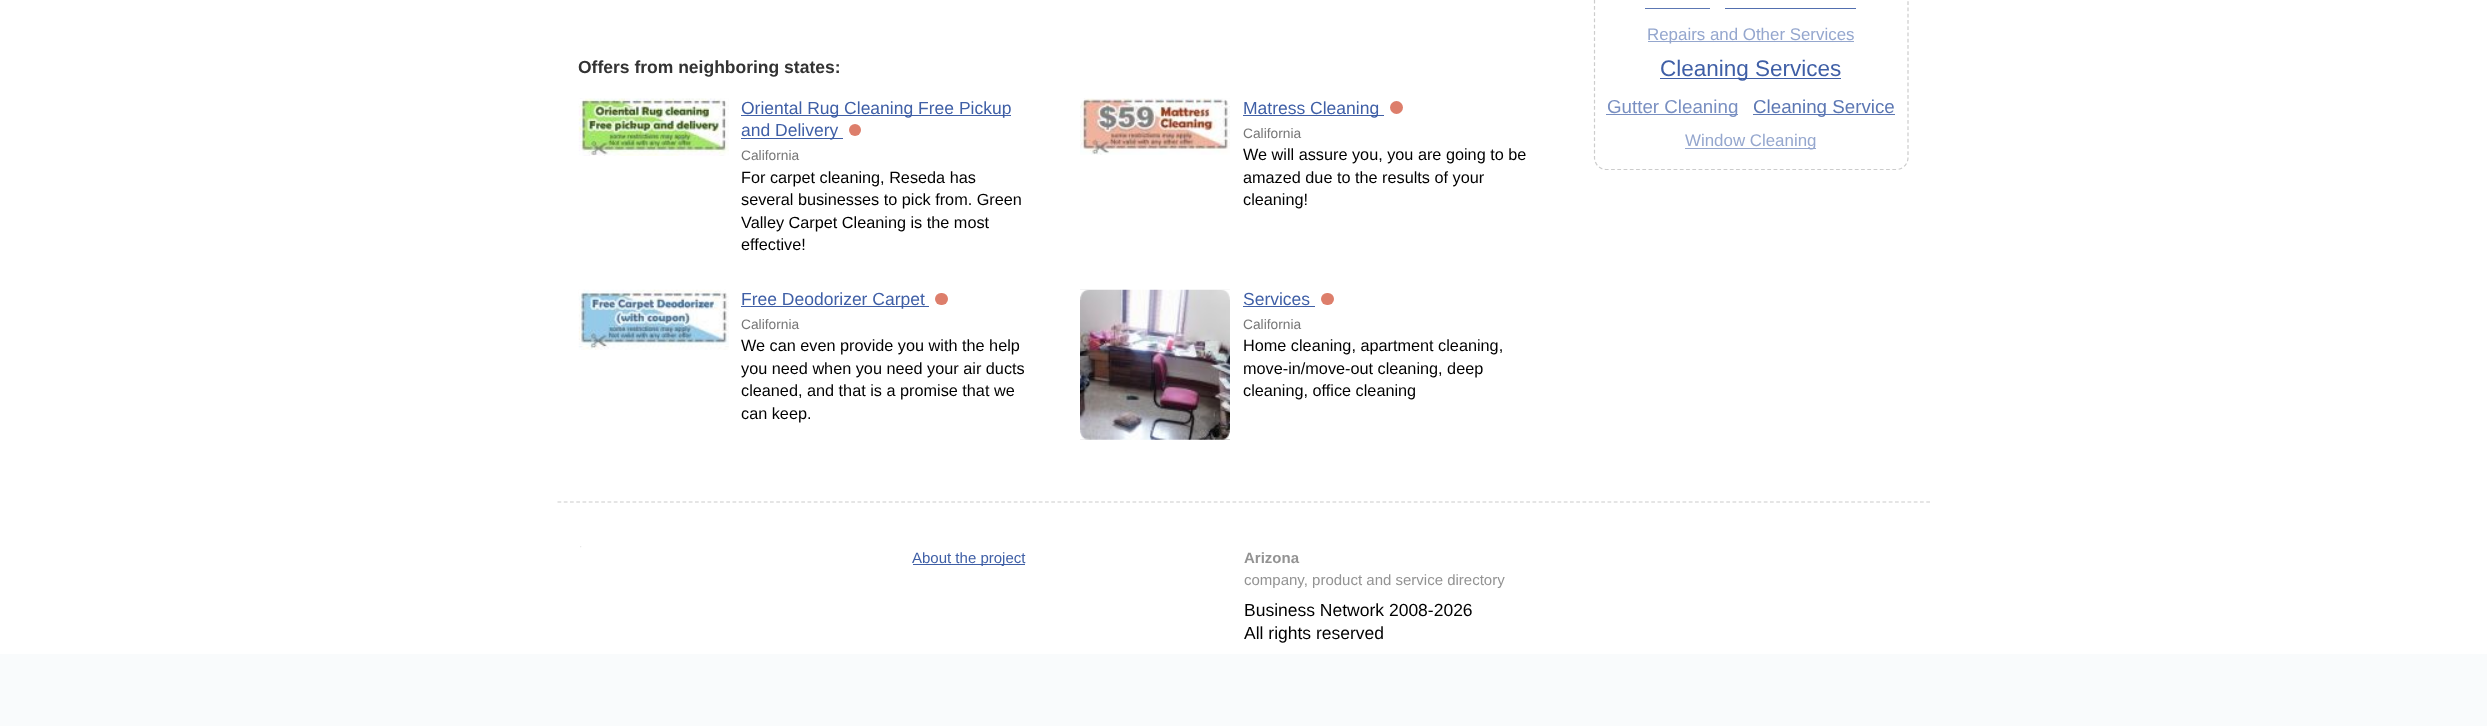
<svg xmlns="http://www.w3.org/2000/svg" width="2487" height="726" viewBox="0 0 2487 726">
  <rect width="100%" height="100%" fill="rgb(255,255,255)"/>
  <text x="578" y="73" font-family="Liberation Sans" font-size="17.5" font-weight="bold" fill="rgb(51,51,51)">Offers from neighboring states:</text>
  <image x="578" y="98" width="151" height="58" href="pic1.png"/>
  <image x="579" y="99" width="149" height="6" href="pic2.png"/>
  <rect x="741" y="115" width="270" height="1" fill="rgb(63,95,166)"/>
  <text x="741" y="114" font-family="Liberation Sans" font-size="17.5" fill="rgb(63,95,166)">Oriental Rug Cleaning Free Pickup</text>
  <rect x="741" y="138" width="102" height="1" fill="rgb(63,95,166)"/>
  <text x="741" y="136" font-family="Liberation Sans" font-size="17.5" fill="rgb(63,95,166)">and Delivery</text>
  <circle cx="855" cy="130" r="6" fill="rgb(221,126,107)"/>
  <text x="741" y="160" font-family="Liberation Sans" font-size="13.75" fill="rgb(119,119,119)">California</text>
  <g font-family="Liberation Sans" font-size="16.25" fill="rgb(0,0,0)">
    <text>
      <tspan x="741" y="183">For carpet cleaning, Reseda has</tspan>
      <tspan x="741" y="205">several businesses to pick from. Green</tspan>
      <tspan x="741" y="228">Valley Carpet Cleaning is the most</tspan>
      <tspan x="741" y="250">effective!</tspan>
    </text>
  </g>
  <image x="1080" y="98" width="150" height="57" href="pic3.png"/>
  <image x="1080" y="99" width="150" height="6" href="pic4.png"/>
  <rect x="1243" y="115" width="141" height="1" fill="rgb(63,95,166)"/>
  <text x="1243" y="114" font-family="Liberation Sans" font-size="17.5" fill="rgb(63,95,166)">Matress Cleaning</text>
  <circle cx="1396.5" cy="107.5" r="6.5" fill="rgb(221,126,107)"/>
  <text x="1243" y="138" font-family="Liberation Sans" font-size="13.75" fill="rgb(119,119,119)">California</text>
  <g font-family="Liberation Sans" font-size="16.25" fill="rgb(0,0,0)">
    <text>
      <tspan x="1243" y="160">We will assure you, you are going to be</tspan>
      <tspan x="1243" y="183">amazed due to the results of your</tspan>
      <tspan x="1243" y="205">cleaning!</tspan>
    </text>
  </g>
  <image x="578" y="289" width="151" height="61" href="pic5.png"/>
  <image x="579" y="290" width="150" height="7" href="pic6.png"/>
  <rect x="741" y="306" width="188" height="1" fill="rgb(63,95,166)"/>
  <text x="741" y="305" font-family="Liberation Sans" font-size="17.5" fill="rgb(63,95,166)">Free Deodorizer Carpet</text>
  <rect x="935" y="293" width="13" height="12" rx="6" fill="rgb(221,126,107)"/>
  <text x="741" y="329" font-family="Liberation Sans" font-size="13.75" fill="rgb(119,119,119)">California</text>
  <g font-family="Liberation Sans" font-size="16.25" fill="rgb(0,0,0)">
    <text>
      <tspan x="741" y="351">We can even provide you with the help</tspan>
      <tspan x="741" y="374">you need when you need your air ducts</tspan>
      <tspan x="741" y="396">cleaned, and that is a promise that we</tspan>
      <tspan x="741" y="419">can keep.</tspan>
    </text>
  </g>
  <image x="1080" y="289" width="150" height="151" href="pic7.png"/>
  <image x="1080" y="289" width="150" height="151" href="pic8.png"/>
  <text x="1243" y="305" font-family="Liberation Sans" font-size="17.5" fill="rgb(63,95,166)">Services</text>
  <rect x="1243" y="306" width="72" height="1" fill="rgb(63,95,166)"/>
  <rect x="1321" y="293" width="13" height="12" rx="6" fill="rgb(221,126,107)"/>
  <text x="1243" y="329" font-family="Liberation Sans" font-size="13.75" fill="rgb(119,119,119)">California</text>
  <g font-family="Liberation Sans" font-size="16.25" fill="rgb(0,0,0)">
    <text>
      <tspan x="1243" y="351">Home cleaning, apartment cleaning,</tspan>
      <tspan x="1243" y="374">move-in/move-out cleaning, deep</tspan>
      <tspan x="1243" y="396">cleaning, office cleaning</tspan>
    </text>
  </g>
  <path d="M1606-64.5H1896C1903-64.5 1908-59 1908-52.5V157.5C1908 164 1903 169.5 1896 169.5H1606C1599.5 169.5 1594.5 164 1594.5 157.5V-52.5C1594.5-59 1599.5-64.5 1606-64.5Z" fill="none" stroke="rgb(204,204,204)" stroke-width="1.2" stroke-dasharray="3.75 2.5"/>
  <rect x="1645" y="8" width="65" height="1" fill="rgb(92,119,179)"/>
  <rect x="1725" y="8" width="131" height="1" fill="rgb(82,111,175)"/>
  <rect x="1648" y="41" width="206" height="1" fill="rgb(149,167,206)"/>
  <text x="1647" y="40" font-family="Liberation Sans" font-size="16.9" fill="rgb(149,167,206)">Repairs and Other Services</text>
  <rect x="1660" y="78" width="181" height="1" fill="rgb(63,95,166)"/>
  <text x="1660" y="76" font-family="Liberation Sans" font-size="22.5" fill="rgb(63,95,166)">Cleaning Services</text>
  <rect x="1606" y="114" width="132" height="1" fill="rgb(121,143,193)"/>
  <text x="1607" y="113" font-family="Liberation Sans" font-size="18.75" fill="rgb(121,143,193)">Gutter Cleaning</text>
  <rect x="1753" y="114" width="142" height="1" fill="rgb(92,119,179)"/>
  <text x="1753" y="113" font-family="Liberation Sans" font-size="18.75" fill="rgb(92,119,179)">Cleaning Service</text>
  <rect x="1685" y="148" width="131" height="1" fill="rgb(149,167,206)"/>
  <text x="1685" y="146" font-family="Liberation Sans" font-size="16.9" fill="rgb(149,167,206)">Window Cleaning</text>
  <rect x="0" y="654" width="2487" height="72" fill="rgb(249,251,252)"/>
  <path d="M557.5 502H1931" fill="none" stroke="rgb(204,204,204)" stroke-width="1.2" stroke-dasharray="3.75 2.5"/>
  <image x="580" y="546" width="2" height="2" href="pic9.png"/>
  <rect x="913" y="564" width="112" height="1" fill="rgb(63,95,166)"/>
  <text x="912" y="563" font-family="Liberation Sans" font-size="15" fill="rgb(63,95,166)">About the project</text>
  <text x="1244" y="563" font-family="Liberation Sans" font-size="15" font-weight="bold" fill="rgb(147,147,147)">Arizona</text>
  <text x="1244" y="585" font-family="Liberation Sans" font-size="15" fill="rgb(147,147,147)">company, product and service directory</text>
  <g font-family="Liberation Sans" font-size="17.5" fill="rgb(0,0,0)">
    <text>
      <tspan x="1244" y="616">Business Network 2008-2026</tspan>
      <tspan x="1244" y="639">All rights reserved</tspan>
    </text>
  </g>
</svg>
